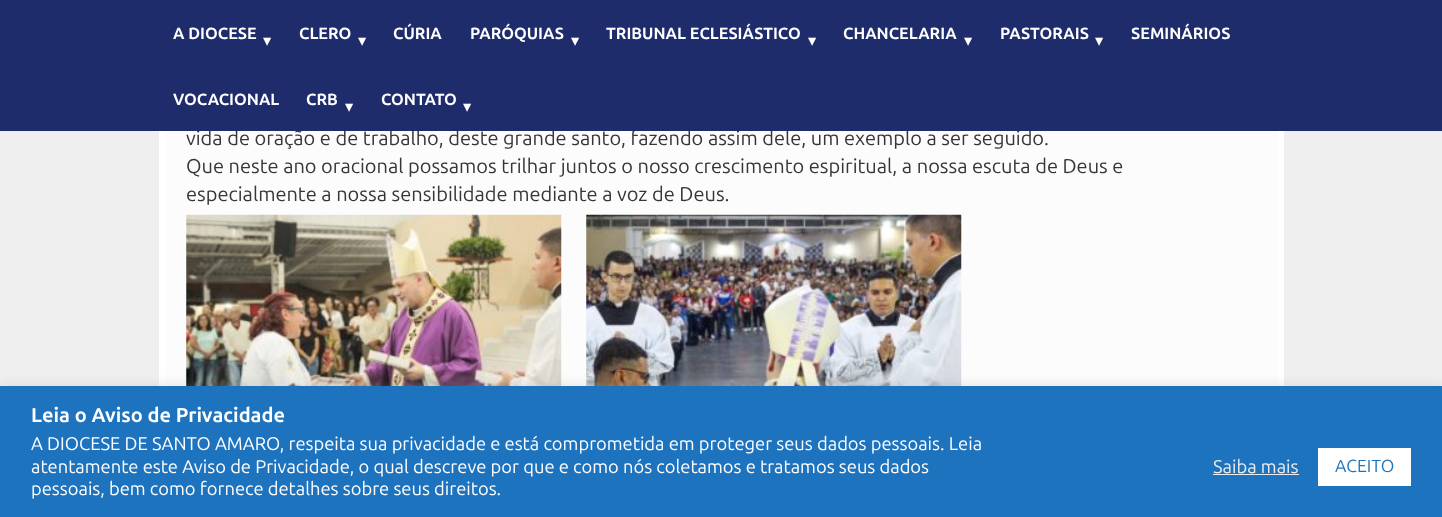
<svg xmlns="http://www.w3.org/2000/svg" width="1442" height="517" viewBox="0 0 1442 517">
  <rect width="100%" height="100%" fill="rgb(240,239,239)"/>
  <rect x="159" y="131" width="1125" height="255" fill="rgb(255,255,255)"/>
  <rect x="165" y="131" width="1113" height="255" fill="rgb(252,252,252)"/>
  <text x="186" y="145" font-family="Ubuntu" font-size="20" fill="rgb(54,54,53)">vida de oração e de trabalho, deste grande santo, fazendo assim dele, um exemplo a ser seguido.</text>
  <rect x="0" y="0" width="1442" height="131" fill="rgb(31,44,108)"/>
  <text x="173" y="39" font-family="Ubuntu" font-size="16.25" font-weight="bold" fill="rgb(255,255,255)">A DIOCESE</text>
  <text x="263" y="46" font-family="DejaVu Sans" font-size="16.25" fill="rgb(255,255,255)">▾</text>
  <text x="299" y="39" font-family="Ubuntu" font-size="16.25" font-weight="bold" fill="rgb(255,255,255)">CLERO</text>
  <text x="358" y="46" font-family="DejaVu Sans" font-size="16.25" fill="rgb(255,255,255)">▾</text>
  <g font-family="Ubuntu" font-size="16.25" font-weight="bold" fill="rgb(255,255,255)">
    <text x="393" y="39">CÚRIA</text>
    <text x="470" y="39">PARÓQUIAS</text>
  </g>
  <text x="571" y="46" font-family="DejaVu Sans" font-size="16.25" fill="rgb(255,255,255)">▾</text>
  <text x="606" y="39" font-family="Ubuntu" font-size="16.25" font-weight="bold" fill="rgb(255,255,255)">TRIBUNAL ECLESIÁSTICO</text>
  <text x="808" y="46" font-family="DejaVu Sans" font-size="16.25" fill="rgb(255,255,255)">▾</text>
  <text x="843" y="39" font-family="Ubuntu" font-size="16.25" font-weight="bold" fill="rgb(255,255,255)">CHANCELARIA</text>
  <text x="964" y="46" font-family="DejaVu Sans" font-size="16.25" fill="rgb(255,255,255)">▾</text>
  <text x="1000" y="39" font-family="Ubuntu" font-size="16.25" font-weight="bold" fill="rgb(255,255,255)">PASTORAIS</text>
  <text x="1095" y="46" font-family="DejaVu Sans" font-size="16.25" fill="rgb(255,255,255)">▾</text>
  <g font-family="Ubuntu" font-size="16.25" font-weight="bold" fill="rgb(255,255,255)">
    <text x="1131" y="39">SEMINÁRIOS</text>
    <text x="173" y="105">VOCACIONAL</text>
    <text x="306" y="105">CRB</text>
  </g>
  <text x="345" y="112" font-family="DejaVu Sans" font-size="16.25" fill="rgb(255,255,255)">▾</text>
  <text x="381" y="105" font-family="Ubuntu" font-size="16.25" font-weight="bold" fill="rgb(255,255,255)">CONTATO</text>
  <text x="463" y="112" font-family="DejaVu Sans" font-size="16.25" fill="rgb(255,255,255)">▾</text>
  <g font-family="Ubuntu" font-size="20" fill="rgb(54,54,53)">
    <text>
      <tspan x="186" y="173">Que neste ano oracional possamos trilhar juntos o nosso crescimento espiritual, a nossa escuta de Deus e</tspan>
      <tspan x="186" y="201">especialmente a nossa sensibilidade mediante a voz de Deus.</tspan>
    </text>
  </g>
  <image x="186" y="214" width="376" height="172" href="pic1.png"/>
  <image x="586" y="214" width="376" height="172" href="pic2.png"/>
  <rect x="0" y="385" width="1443" height="131" fill="rgba(172,171,171,0.3)" filter="blur(6px)"/>
  <rect x="0" y="386" width="1442" height="131" fill="rgb(30,115,190)"/>
  <text x="31" y="422" font-family="Ubuntu" font-size="20" font-weight="bold" fill="rgb(255,255,255)">Leia o Aviso de Privacidade</text>
  <g font-family="Ubuntu" font-size="18.33" fill="rgb(255,255,255)">
    <text>
      <tspan x="31" y="450">A DIOCESE DE SANTO AMARO, respeita sua privacidade e está comprometida em proteger seus dados pessoais. Leia</tspan>
      <tspan x="31" y="473">atentamente este Aviso de Privacidade, o qual descreve por que e como nós coletamos e tratamos seus dados</tspan>
      <tspan x="31" y="495">pessoais, bem como fornece detalhes sobre seus direitos.</tspan>
    </text>
  </g>
  <text x="1213" y="473" font-family="Ubuntu" font-size="18.33" fill="rgb(237,237,237)">Saiba mais</text>
  <rect x="1213" y="474" width="86" height="1" fill="rgb(237,237,237)"/>
  <rect x="1318" y="448" width="93" height="38" fill="rgb(255,255,255)"/>
  <text x="1335" y="472" font-family="Ubuntu" font-size="17.5" fill="rgb(30,115,190)">ACEITO</text>
</svg>
